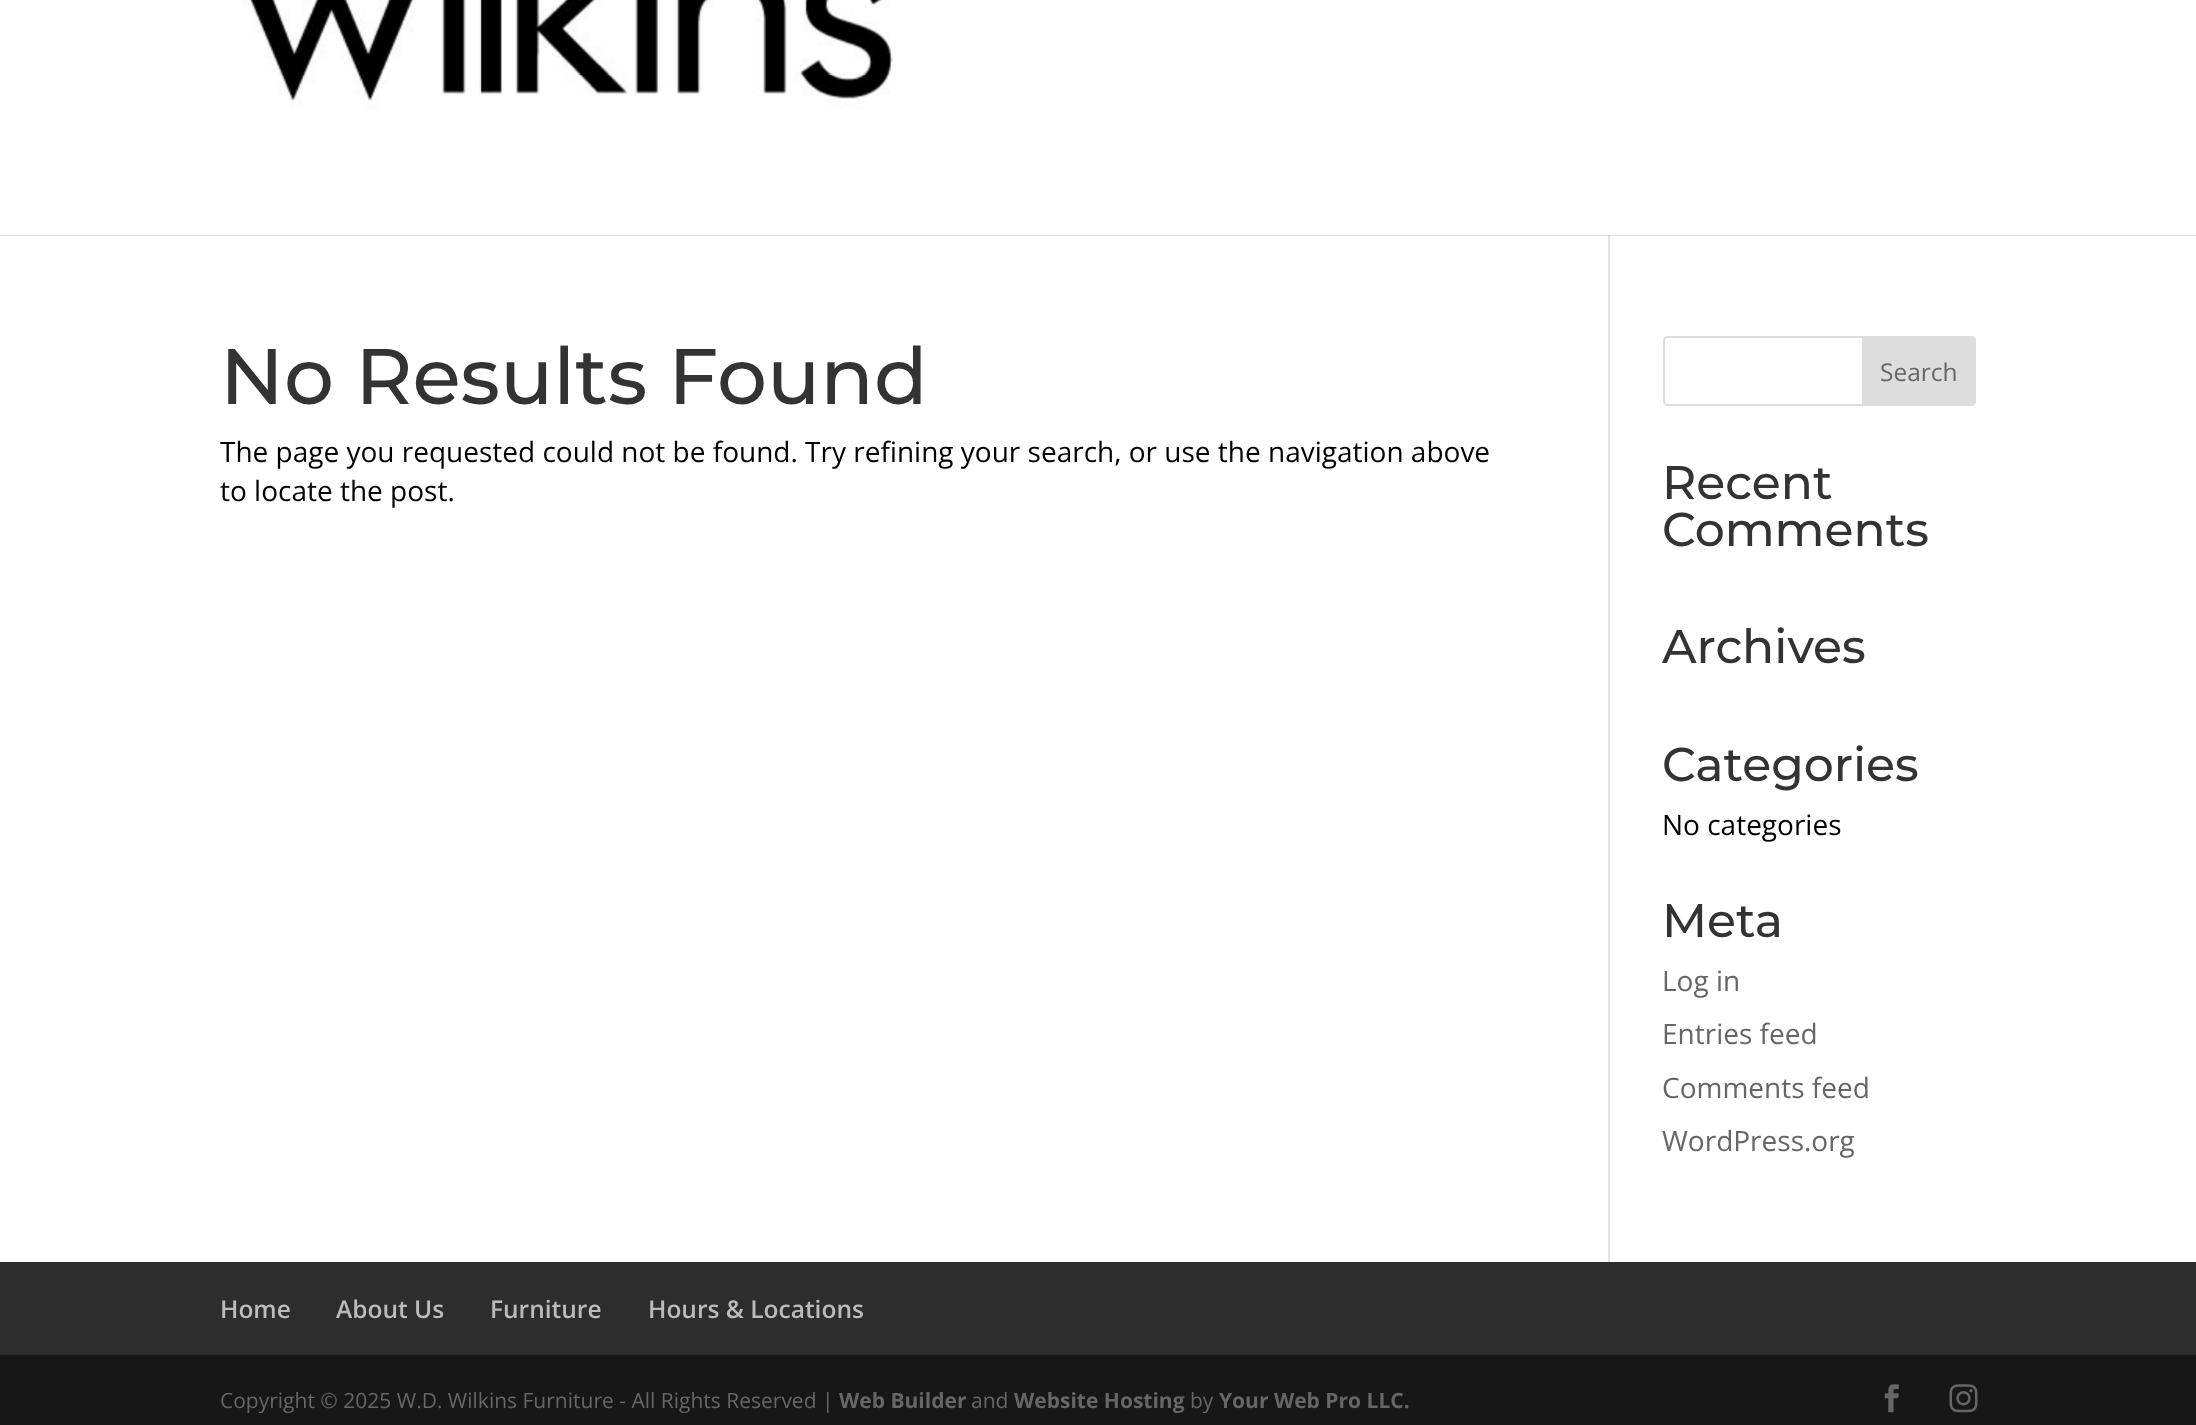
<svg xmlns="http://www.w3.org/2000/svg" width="2196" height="1425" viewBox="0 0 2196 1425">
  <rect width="100%" height="100%" fill="rgb(255,255,255)"/>
  <image x="242" y="0" width="651" height="109" href="pic1.png"/>
  <rect x="0" y="235" width="2196" height="1" fill="rgb(230,230,230)"/>
  <rect x="1608" y="235" width="2" height="1027" fill="rgb(226,226,226)"/>
  <rect x="1608" y="235" width="2" height="1" fill="rgb(203,203,203)"/>
  <text x="220" y="404" font-family="Montserrat" font-size="78.75" font-weight="500" fill="rgb(51,51,51)">No Results Found</text>
  <g font-family="Open Sans" font-size="28" fill="rgb(0,0,0)">
    <text>
      <tspan x="220" y="462">The page you requested could not be found. Try refining your search, or use the navigation above</tspan>
      <tspan x="220" y="501">to locate the post.</tspan>
    </text>
  </g>
  <rect x="1664" y="337" width="311" height="68" rx="4" fill="none" stroke="rgb(221,221,221)" stroke-width="2"/>
  <path d="M1863 337H1971C1973 337 1975 339 1975 341V401C1975 403 1973 405 1971 405H1863Z" fill="rgb(221,221,221)" stroke="rgb(221,221,221)" stroke-width="2"/>
  <text x="1880" y="381" font-family="Open Sans" font-size="24.5" fill="rgb(102,102,102)">Search</text>
  <g font-family="Montserrat" font-size="47.25" font-weight="500" fill="rgb(51,51,51)">
    <text>
      <tspan x="1662" y="499">Recent</tspan>
      <tspan x="1662" y="546">Comments</tspan>
    </text>
    <text x="1662" y="663">Archives</text>
    <text x="1662" y="781">Categories</text>
  </g>
  <text x="1662" y="835" font-family="Open Sans" font-size="28" fill="rgb(0,0,0)">No categories</text>
  <text x="1662" y="937" font-family="Montserrat" font-size="47.25" font-weight="500" fill="rgb(51,51,51)">Meta</text>
  <g font-family="Open Sans" font-size="28" fill="rgb(102,102,102)">
    <text>
      <tspan x="1662" y="991">Log in</tspan>
      <tspan x="1662" y="1044">Entries feed</tspan>
      <tspan x="1662" y="1098">Comments feed</tspan>
      <tspan x="1662" y="1151">WordPress.org</tspan>
    </text>
  </g>
  <rect x="0" y="1262" width="2196" height="93" fill="rgb(45,45,45)"/>
  <g font-family="Open Sans" font-size="24.5" font-weight="600" fill="rgb(187,187,187)">
    <text x="220" y="1318">Home</text>
    <text x="336" y="1318">About Us</text>
    <text x="490" y="1318">Furniture</text>
    <text x="648" y="1318">Hours &amp; Locations</text>
  </g>
  <rect x="0" y="1355" width="2196" height="70" fill="rgb(23,23,23)"/>
  <text x="220" y="1408" font-family="Open Sans" font-size="21" fill="rgb(102,102,102)">Copyright © 2025 W.D. Wilkins Furniture - All Rights Reserved |</text>
  <text x="839" y="1408" font-family="Open Sans" font-size="21" font-weight="bold" fill="rgb(102,102,102)">Web Builder</text>
  <text x="971" y="1408" font-family="Open Sans" font-size="21" fill="rgb(102,102,102)">and</text>
  <text x="1014" y="1408" font-family="Open Sans" font-size="21" font-weight="bold" fill="rgb(102,102,102)">Website Hosting</text>
  <text x="1190" y="1408" font-family="Open Sans" font-size="21" fill="rgb(102,102,102)">by</text>
  <text x="1219" y="1408" font-family="Open Sans" font-size="21" font-weight="bold" fill="rgb(102,102,102)">Your Web Pro LLC.</text>
  <image x="1884" y="1384" width="15" height="29" href="pic2.png"/>
  <image x="1949" y="1384" width="29" height="29" href="pic3.png"/>
</svg>
